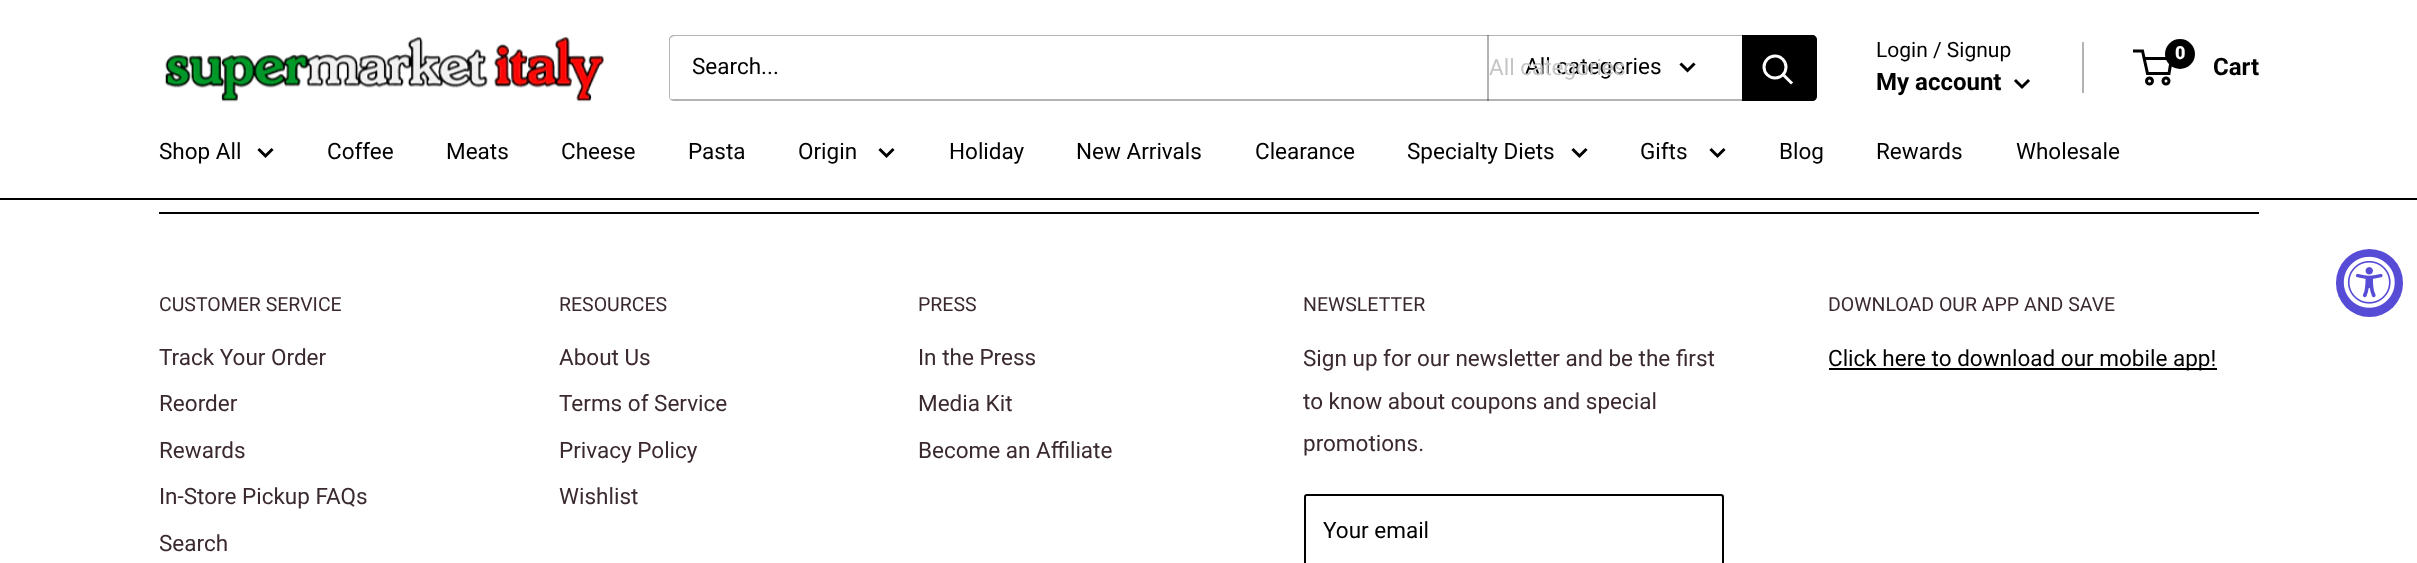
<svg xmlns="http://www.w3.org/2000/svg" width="2417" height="563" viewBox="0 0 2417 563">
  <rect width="100%" height="100%" fill="rgb(255,255,255)"/>
  <image x="165" y="37" width="439" height="65" href="pic1.png"/>
  <path d="M669 98C670 100 672 101 674 101H1812C1815 101 1817 99 1817 96V40C1817 38 1816 37 1815 36V38V94C1815 97 1813 99 1810 99H672C671 99 670 99 669 98Z" fill="rgb(179,179,179)"/>
  <path d="M675 36H1815C1814 35 1813 35 1812 35H674C671 35 669 37 669 40V96C669 98 670 99 671 100L670 98V39C671 37 673 36 675 36Z" fill="rgb(179,179,179)"/>
  <text x="692" y="74" font-family="Roboto" font-size="22.5" fill="rgb(0,0,0)">Search...</text>
  <rect x="1487" y="35" width="2" height="66" fill="rgba(0,0,0,0.3)"/>
  <text x="1525" y="74" font-family="Roboto" font-size="22.5" fill="rgb(0,0,0)">All categories</text>
  <path d="M1693.5 64.5L1687.5 70.5L1681.5 64.5" fill="none" stroke="rgb(0,0,0)" stroke-width="3" stroke-linecap="square"/>
  <text x="1489" y="75" font-family="Roboto" font-size="22.5" fill="rgb(197,197,197)">All categories</text>
  <path d="M1742 35H1812C1815 35 1817 37 1817 40V96C1817 99 1815 101 1812 101H1742Z" fill="rgb(0,0,0)"/>
  <path d="M1791 82.5L1783.5 75" fill="none" stroke="rgb(255,255,255)" stroke-width="3" stroke-linecap="square"/>
  <circle cx="1775" cy="67" r="11" fill="none" stroke="rgb(255,255,255)" stroke-width="3"/>
  <text x="1876" y="57" font-family="Roboto" font-size="21" fill="rgb(0,0,0)">Login / Signup</text>
  <rect x="2082" y="42" width="2" height="51" fill="rgb(179,179,179)"/>
  <text x="1876" y="90" font-family="Roboto" font-size="24" font-weight="bold" fill="rgb(0,0,0)">My account</text>
  <path d="M2028 81L2022 87L2016 81" fill="none" stroke="rgb(0,0,0)" stroke-width="3" stroke-linecap="square"/>
  <circle cx="2149.5" cy="81" r="3" fill="none" stroke="rgb(0,0,0)" stroke-width="3"/>
  <circle cx="2166" cy="81" r="3" fill="none" stroke="rgb(0,0,0)" stroke-width="3"/>
  <path d="M2144 58.5H2171.5L2169 73.5H2147.5L2142.5 51H2133" fill="none" stroke="rgb(0,0,0)" stroke-width="3"/>
  <circle cx="2180" cy="54" r="15" fill="rgb(0,0,0)"/>
  <text x="2175" y="59" font-family="Roboto" font-size="18" font-weight="900" fill="rgb(255,255,255)">0</text>
  <text x="2213" y="75" font-family="Roboto" font-size="24" font-weight="bold" fill="rgb(0,0,0)">Cart</text>
  <rect x="0" y="198" width="2417" height="2" fill="rgb(0,0,0)"/>
  <text x="159" y="159" font-family="Roboto" font-size="22.5" fill="rgb(0,0,0)">Shop All</text>
  <path d="M271.5 150L265.5 156L259.5 150" fill="none" stroke="rgb(0,0,0)" stroke-width="3" stroke-linecap="square"/>
  <g font-family="Roboto" font-size="22.5" fill="rgb(0,0,0)">
    <text x="327" y="159">Coffee</text>
    <text x="446" y="159">Meats</text>
    <text x="561" y="159">Cheese</text>
    <text x="688" y="159">Pasta</text>
    <text x="798" y="159">Origin</text>
  </g>
  <path d="M892.5 150L886.5 156L880.5 150" fill="none" stroke="rgb(0,0,0)" stroke-width="3" stroke-linecap="square"/>
  <g font-family="Roboto" font-size="22.5" fill="rgb(0,0,0)">
    <text x="949" y="159">Holiday</text>
    <text x="1076" y="159">New Arrivals</text>
    <text x="1255" y="159">Clearance</text>
    <text x="1407" y="159">Specialty Diets</text>
  </g>
  <path d="M1585.5 150L1579.5 156L1573.5 150" fill="none" stroke="rgb(0,0,0)" stroke-width="3" stroke-linecap="square"/>
  <text x="1640" y="159" font-family="Roboto" font-size="22.5" fill="rgb(0,0,0)">Gifts</text>
  <path d="M1723.5 150L1717.5 156L1711.5 150" fill="none" stroke="rgb(0,0,0)" stroke-width="3" stroke-linecap="square"/>
  <g font-family="Roboto" font-size="22.5" fill="rgb(0,0,0)">
    <text x="1779" y="159">Blog</text>
    <text x="1876" y="159">Rewards</text>
    <text x="2016" y="159">Wholesale</text>
  </g>
  <rect x="2336" y="249" width="67" height="68" rx="33.5" fill="rgb(87,76,213)"/>
  <image x="2343" y="256" width="52" height="52" href="pic2.png"/>
  <rect x="159" y="212" width="2100" height="2" fill="rgb(0,0,0)"/>
  <text x="159" y="311" font-family="Roboto" font-size="19.5" fill="rgb(58,42,47)">CUSTOMER SERVICE</text>
  <g font-family="Roboto" font-size="22.5" fill="rgb(58,42,47)">
    <text x="159" y="365">Track Your Order</text>
    <text x="159" y="411">Reorder</text>
    <text x="159" y="458">Rewards</text>
    <text x="159" y="504">In-Store Pickup FAQs</text>
    <text x="159" y="551">Search</text>
  </g>
  <text x="559" y="311" font-family="Roboto" font-size="19.5" fill="rgb(58,42,47)">RESOURCES</text>
  <g font-family="Roboto" font-size="22.5" fill="rgb(58,42,47)">
    <text x="559" y="365">About Us</text>
    <text x="559" y="411">Terms of Service</text>
    <text x="559" y="458">Privacy Policy</text>
    <text x="559" y="504">Wishlist</text>
  </g>
  <text x="918" y="311" font-family="Roboto" font-size="19.5" fill="rgb(58,42,47)">PRESS</text>
  <g font-family="Roboto" font-size="22.5" fill="rgb(58,42,47)">
    <text x="918" y="365">In the Press</text>
    <text x="918" y="411">Media Kit</text>
    <text x="918" y="458">Become an Affiliate</text>
  </g>
  <text x="1303" y="311" font-family="Roboto" font-size="19.5" fill="rgb(58,42,47)">NEWSLETTER</text>
  <g font-family="Roboto" font-size="22.5" fill="rgb(58,42,47)">
    <text>
      <tspan x="1303" y="366">Sign up for our newsletter and be the first</tspan>
      <tspan x="1303" y="409">to know about coupons and special</tspan>
      <tspan x="1303" y="451">promotions.</tspan>
    </text>
  </g>
  <path d="M1306 496H1720C1721 496 1722 497 1722 498C1722 497 1722 495 1720 495H1306L1305 496V498Z" fill="rgb(191,191,191)"/>
  <rect x="1305" y="495" width="418" height="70" rx="2" fill="none" stroke="rgb(0,0,0)" stroke-width="2"/>
  <text x="1323" y="538" font-family="Roboto" font-size="22.5" fill="rgb(0,0,0)">Your email</text>
  <text x="1828" y="311" font-family="Roboto" font-size="19.5" fill="rgb(58,42,47)">DOWNLOAD OUR APP AND SAVE</text>
  <rect x="1829" y="368" width="388" height="2" fill="rgb(0,0,0)"/>
  <text x="1828" y="366" font-family="Roboto" font-size="22.5" fill="rgb(0,0,0)">Click here to download our mobile app!</text>
</svg>
